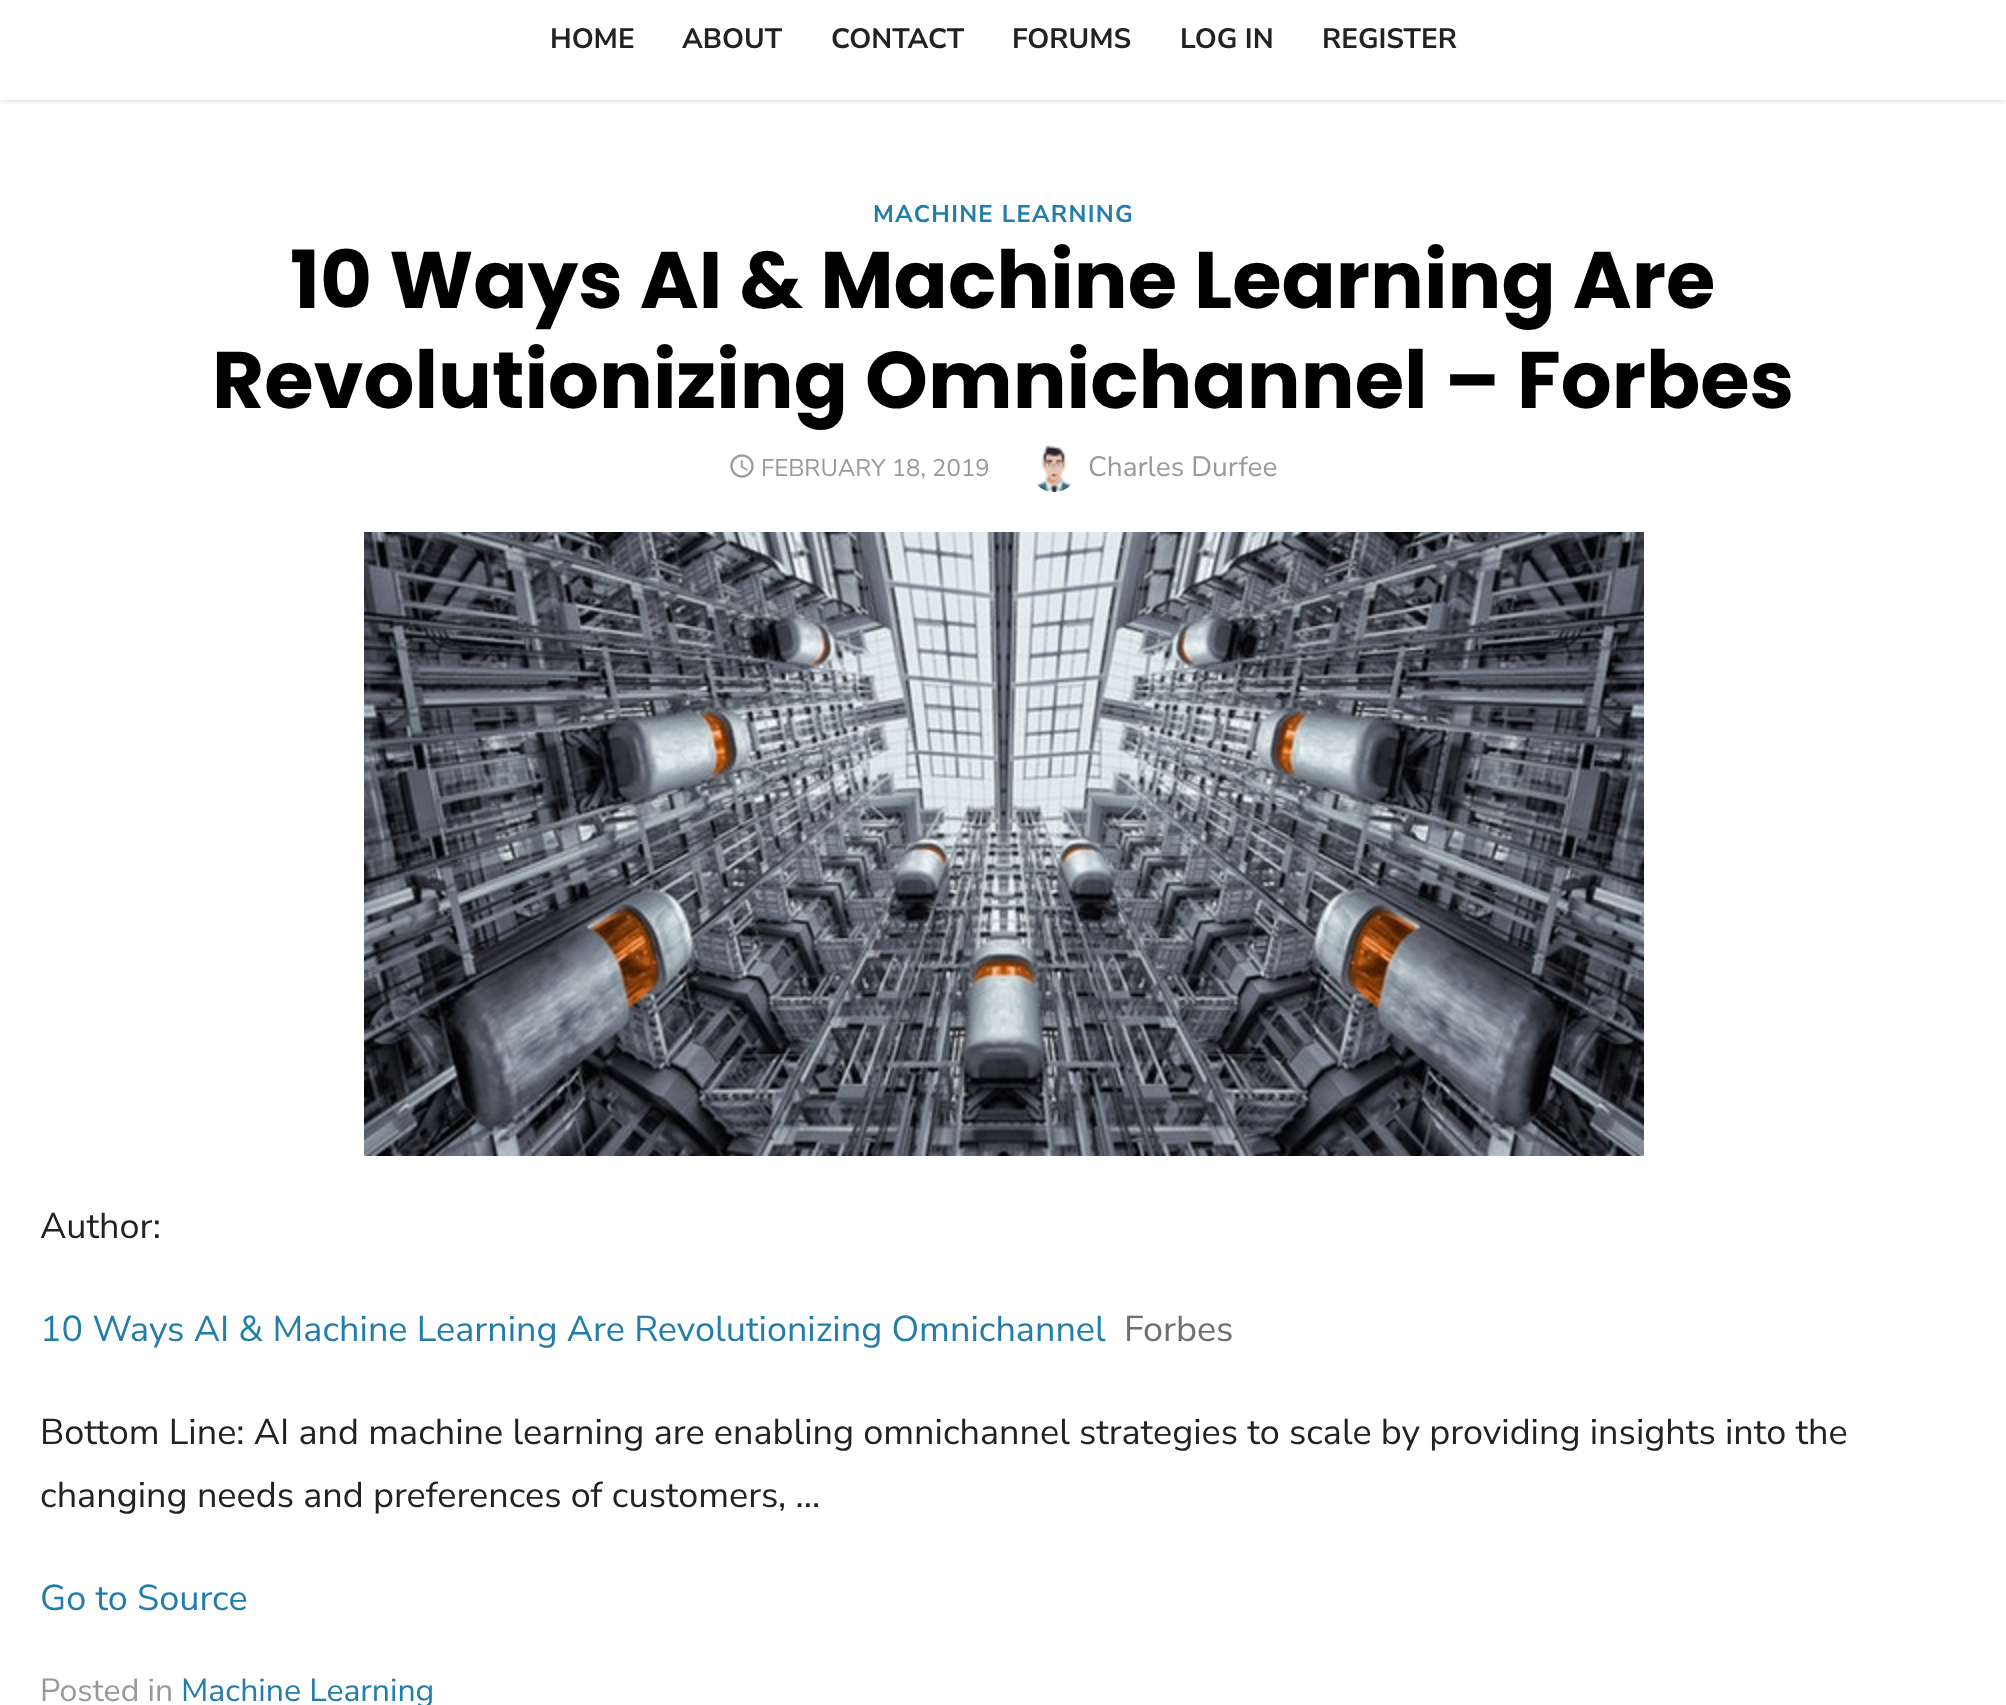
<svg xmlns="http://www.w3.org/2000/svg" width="2006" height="1705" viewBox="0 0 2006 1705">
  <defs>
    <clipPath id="clip1"><rect x="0" y="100" width="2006" height="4"/></clipPath>
  </defs>
  <rect width="100%" height="100%" fill="rgb(255,255,255)"/>
  <g clip-path="url(#clip1)">
    <rect x="0" y="-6" width="2006" height="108" fill="rgba(0,0,0,0.1)" filter="blur(2px)"/>
  </g>
  <g font-family="Nunito Sans" font-size="28" font-weight="bold" fill="rgb(34,34,34)">
    <text x="550" y="48">HOME</text>
    <text x="682" y="48">ABOUT</text>
    <text x="831" y="48">CONTACT</text>
    <text x="1012" y="48">FORUMS</text>
    <text x="1180" y="48">LOG IN</text>
    <text x="1322" y="48">REGISTER</text>
  </g>
  <text x="873" y="222" font-family="Nunito Sans" font-size="24" font-weight="bold" letter-spacing="1.25" fill="rgb(34,125,170)">MACHINE LEARNING</text>
  <g font-family="Poppins" font-size="80" font-weight="bold" fill="rgb(0,0,0)">
    <text x="290" y="308">10 Ways AI &amp; Machine Learning Are</text>
    <text x="212" y="408">Revolutionizing Omnichannel – Forbes</text>
  </g>
  <image x="730" y="454" width="24" height="24" href="pic1.png"/>
  <text x="761" y="476" font-family="Nunito Sans" font-size="24" fill="rgb(153,153,153)">FEBRUARY 18, 2019</text>
  <image x="1036" y="445" width="36" height="47" href="pic2.png"/>
  <text x="1088" y="476" font-family="Nunito Sans" font-size="28" fill="rgb(153,153,153)">Charles Durfee</text>
  <image x="364" y="532" width="1280" height="624" href="pic3.png"/>
  <text x="40" y="1238" font-family="Nunito Sans" font-size="36" fill="rgb(34,34,34)">Author:</text>
  <text x="40" y="1341" font-family="Nunito Sans" font-size="36" fill="rgb(34,125,170)">10 Ways AI &amp; Machine Learning Are Revolutionizing Omnichannel</text>
  <text x="1124" y="1341" font-family="Nunito Sans" font-size="36" fill="rgb(111,111,111)">Forbes</text>
  <g font-family="Nunito Sans" font-size="36" fill="rgb(34,34,34)">
    <text>
      <tspan x="40" y="1444">Bottom Line: AI and machine learning are enabling omnichannel strategies to scale by providing insights into the</tspan>
      <tspan x="40" y="1507">changing needs and preferences of customers, …</tspan>
    </text>
  </g>
  <text x="40" y="1610" font-family="Nunito Sans" font-size="36" fill="rgb(34,125,170)">Go to Source</text>
  <text x="40" y="1701" font-family="Nunito Sans" font-size="32" fill="rgb(153,153,153)">Posted in</text>
  <text x="181" y="1701" font-family="Nunito Sans" font-size="32" fill="rgb(34,125,170)">Machine Learning</text>
</svg>
